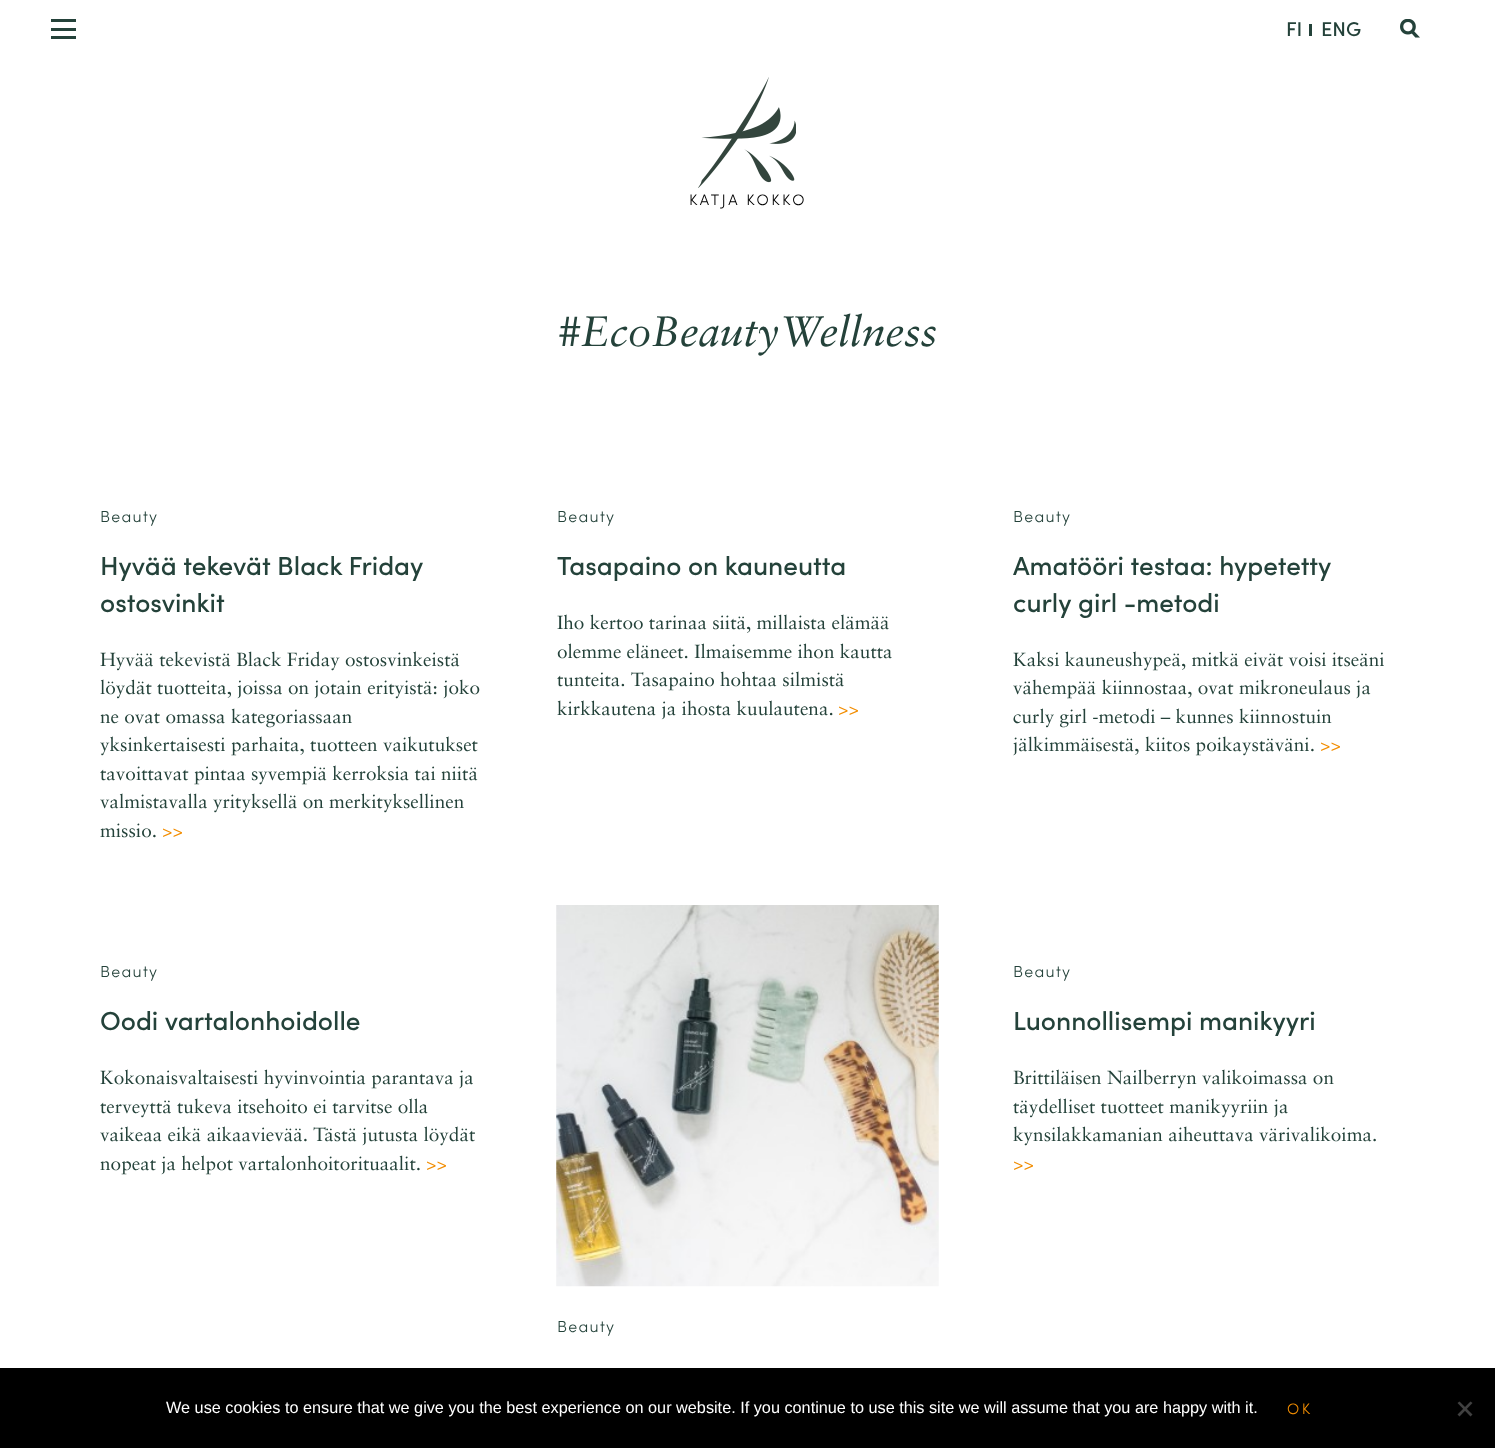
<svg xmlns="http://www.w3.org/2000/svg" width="1495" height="1448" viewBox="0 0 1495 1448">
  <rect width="100%" height="100%" fill="rgb(255,255,255)"/>
  <rect x="51" y="36" width="25" height="3" fill="rgb(36,66,58)"/>
  <rect x="51" y="28" width="25" height="3" fill="rgb(36,66,58)"/>
  <rect x="51" y="19" width="25" height="3" fill="rgb(36,66,58)"/>
  <text x="1286" y="36" font-family="Sofia" font-size="20" font-weight="500" fill="rgb(36,66,58)">FI</text>
  <rect x="1309" y="24" width="3" height="12" fill="rgb(36,66,58)"/>
  <text x="1321" y="36" font-family="Sofia" font-size="20" font-weight="500" fill="rgb(36,66,58)">ENG</text>
  <image x="1400" y="19" width="20" height="19" href="pic1.png"/>
  <image x="698" y="77" width="98" height="111" href="pic2.png"/>
  <text x="689" y="205" font-family="Sofia" font-size="15.25" font-weight="300" letter-spacing="2.5" fill="rgb(0,0,0)">KATJA KOKKO</text>
  <text x="557" y="346" font-family="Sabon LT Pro" font-size="42.5" font-style="italic" fill="rgb(36,66,58)">#EcoBeautyWellness</text>
  <text x="100" y="522" font-family="Sofia" font-size="16" font-weight="300" letter-spacing="1.25" fill="rgb(36,66,58)">Beauty</text>
  <g font-family="Sofia" font-size="26.25" font-weight="500" fill="rgb(36,66,58)">
    <text>
      <tspan x="100" y="575">Hyvää tekevät Black Friday</tspan>
      <tspan x="100" y="612">ostosvinkit</tspan>
    </text>
  </g>
  <g font-family="Sabon LT Pro" font-size="19" fill="rgb(36,66,58)">
    <text>
      <tspan x="100" y="666">Hyvää tekevistä Black Friday ostosvinkeistä</tspan>
      <tspan x="100" y="694">löydät tuotteita, joissa on jotain erityistä: joko</tspan>
      <tspan x="100" y="723">ne ovat omassa kategoriassaan</tspan>
      <tspan x="100" y="751">yksinkertaisesti parhaita, tuotteen vaikutukset</tspan>
      <tspan x="100" y="780">tavoittavat pintaa syvempiä kerroksia tai niitä</tspan>
      <tspan x="100" y="808">valmistavalla yrityksellä on merkityksellinen</tspan>
      <tspan x="100" y="837">missio.</tspan>
    </text>
  </g>
  <text x="162" y="837" font-family="Sabon LT Pro" font-size="19" fill="rgb(242,141,0)">&gt;&gt;</text>
  <text x="557" y="522" font-family="Sofia" font-size="16" font-weight="300" letter-spacing="1.25" fill="rgb(36,66,58)">Beauty</text>
  <text x="557" y="575" font-family="Sofia" font-size="26.25" font-weight="500" fill="rgb(36,66,58)">Tasapaino on kauneutta</text>
  <g font-family="Sabon LT Pro" font-size="19" fill="rgb(36,66,58)">
    <text>
      <tspan x="557" y="629">Iho kertoo tarinaa siitä, millaista elämää</tspan>
      <tspan x="557" y="658">olemme eläneet. Ilmaisemme ihon kautta</tspan>
      <tspan x="557" y="686">tunteita. Tasapaino hohtaa silmistä</tspan>
      <tspan x="557" y="715">kirkkautena ja ihosta kuulautena.</tspan>
    </text>
  </g>
  <text x="838" y="715" font-family="Sabon LT Pro" font-size="19" fill="rgb(242,141,0)">&gt;&gt;</text>
  <text x="1013" y="522" font-family="Sofia" font-size="16" font-weight="300" letter-spacing="1.25" fill="rgb(36,66,58)">Beauty</text>
  <g font-family="Sofia" font-size="26.25" font-weight="500" fill="rgb(36,66,58)">
    <text>
      <tspan x="1013" y="575">Amatööri testaa: hypetetty</tspan>
      <tspan x="1013" y="612">curly girl -metodi</tspan>
    </text>
  </g>
  <g font-family="Sabon LT Pro" font-size="19" fill="rgb(36,66,58)">
    <text>
      <tspan x="1013" y="666">Kaksi kauneushypeä, mitkä eivät voisi itseäni</tspan>
      <tspan x="1013" y="694">vähempää kiinnostaa, ovat mikroneulaus ja</tspan>
      <tspan x="1013" y="723">curly girl -metodi – kunnes kiinnostuin</tspan>
      <tspan x="1013" y="751">jälkimmäisestä, kiitos poikaystäväni.</tspan>
    </text>
  </g>
  <text x="1320" y="751" font-family="Sabon LT Pro" font-size="19" fill="rgb(242,141,0)">&gt;&gt;</text>
  <text x="100" y="977" font-family="Sofia" font-size="16" font-weight="300" letter-spacing="1.25" fill="rgb(36,66,58)">Beauty</text>
  <text x="100" y="1030" font-family="Sofia" font-size="26.25" font-weight="500" fill="rgb(36,66,58)">Oodi vartalonhoidolle</text>
  <g font-family="Sabon LT Pro" font-size="19" fill="rgb(36,66,58)">
    <text>
      <tspan x="100" y="1084">Kokonaisvaltaisesti hyvinvointia parantava ja</tspan>
      <tspan x="100" y="1113">terveyttä tukeva itsehoito ei tarvitse olla</tspan>
      <tspan x="100" y="1141">vaikeaa eikä aikaavievää. Tästä jutusta löydät</tspan>
      <tspan x="100" y="1170">nopeat ja helpot vartalonhoitorituaalit.</tspan>
    </text>
  </g>
  <text x="426" y="1170" font-family="Sabon LT Pro" font-size="19" fill="rgb(242,141,0)">&gt;&gt;</text>
  <text x="1013" y="977" font-family="Sofia" font-size="16" font-weight="300" letter-spacing="1.25" fill="rgb(36,66,58)">Beauty</text>
  <text x="1013" y="1030" font-family="Sofia" font-size="26.25" font-weight="500" fill="rgb(36,66,58)">Luonnollisempi manikyyri</text>
  <g font-family="Sabon LT Pro" font-size="19" fill="rgb(36,66,58)">
    <text>
      <tspan x="1013" y="1084">Brittiläisen Nailberryn valikoimassa on</tspan>
      <tspan x="1013" y="1113">täydelliset tuotteet manikyyriin ja</tspan>
      <tspan x="1013" y="1141">kynsilakkamanian aiheuttava värivalikoima.</tspan>
    </text>
  </g>
  <text x="1013" y="1170" font-family="Sabon LT Pro" font-size="19" fill="rgb(242,141,0)">&gt;&gt;</text>
  <image x="556" y="905" width="383" height="382" href="pic3.png"/>
  <text x="557" y="1332" font-family="Sofia" font-size="16" font-weight="300" letter-spacing="1.25" fill="rgb(36,66,58)">Beauty</text>
  <rect x="0" y="1368" width="1495" height="80" fill="rgb(0,0,0)"/>
  <text x="166" y="1413" font-family="Liberation Sans" font-size="16.25" fill="rgb(255,255,255)">We use cookies to ensure that we give you the best experience on our website. If you continue to use this site we will assume that you are happy with it.</text>
  <text x="1287" y="1414" font-family="Sofia" font-size="15.25" font-weight="300" letter-spacing="2.5" fill="rgb(242,141,0)">OK</text>
  <path d="M1470.5 1401.5L1472.5 1403L1459.5 1416.5L1457.5 1414.5Z" fill="rgb(64,64,64)"/>
  <path d="M1457.5 1403L1459.5 1401.5L1472.5 1414.5L1470.5 1416.5Z" fill="rgb(64,64,64)"/>
</svg>
